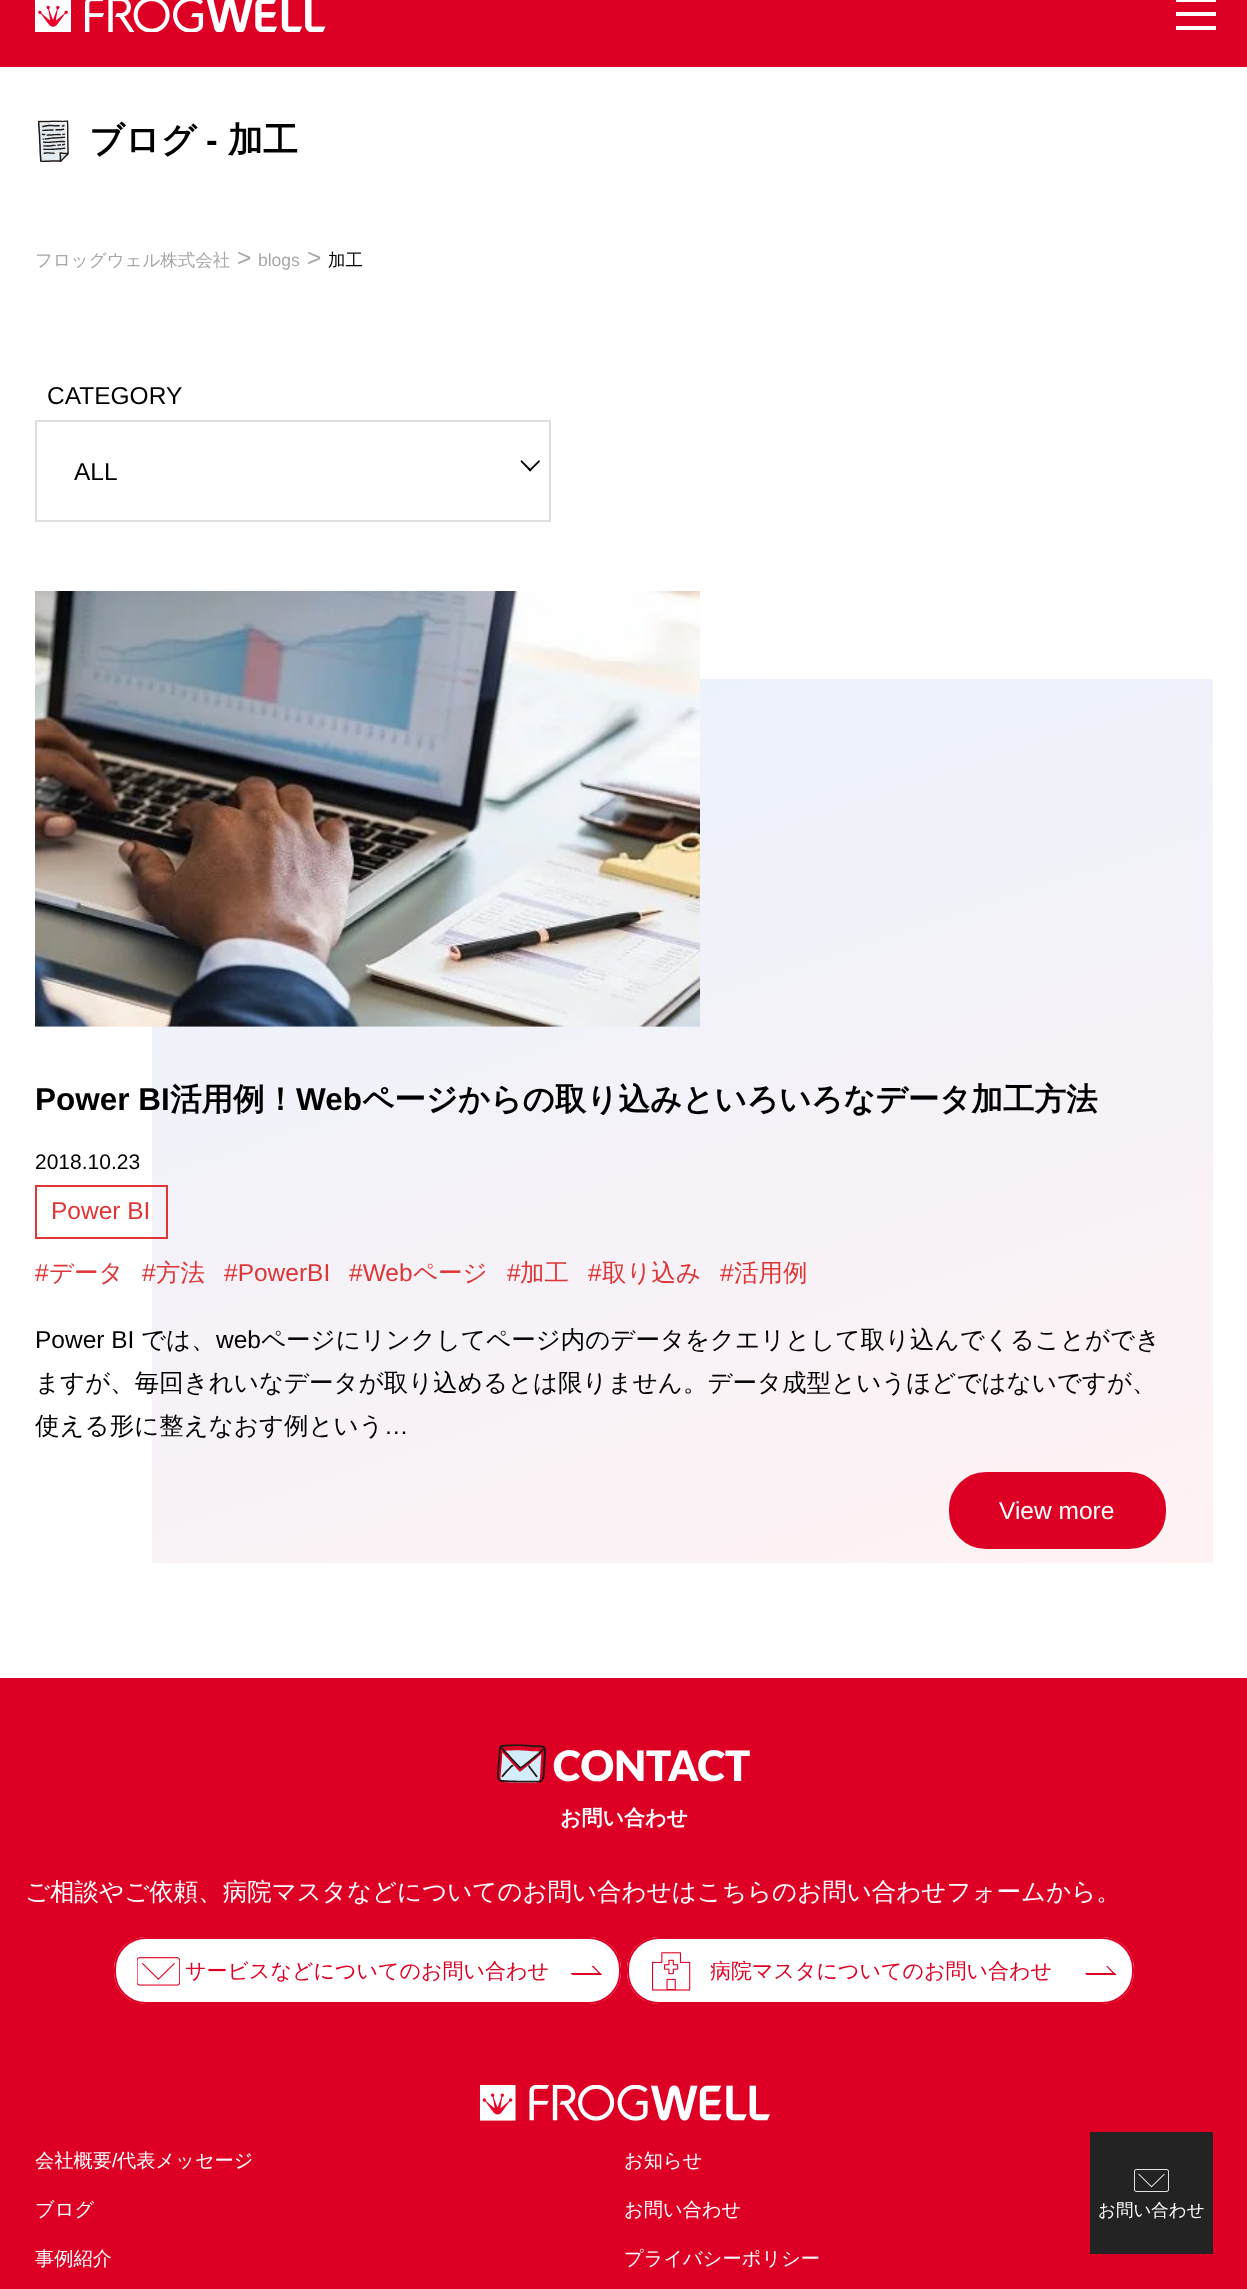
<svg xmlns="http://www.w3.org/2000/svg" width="1247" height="2289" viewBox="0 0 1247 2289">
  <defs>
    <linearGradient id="g1" gradientUnits="userSpaceOnUse" x1="500" y1="565" x2="865" y2="1677"><stop offset="0" stop-color="rgb(233,242,253)"/><stop offset="1" stop-color="rgb(255,242,243)"/></linearGradient>
  </defs>
  <rect width="100%" height="100%" fill="rgb(255,255,255)"/>
  <rect x="0" y="0" width="1247" height="67" fill="rgb(221,0,36)"/>
  <image x="35" y="0" width="291" height="32" href="pic1.png"/>
  <rect x="1176" y="12" width="40" height="4" fill="rgb(255,255,255)"/>
  <rect x="1176" y="0" width="40" height="2" fill="rgb(255,255,255)"/>
  <rect x="1176" y="26" width="40" height="4" fill="rgb(255,255,255)"/>
  <image x="37" y="120" width="32" height="42" href="pic2.png"/>
  <text x="89" y="152" font-family="WenQuanYi Zen Hei" font-size="35" font-weight="bold" fill="rgb(0,0,0)">ブログ</text>
  <text x="206" y="152" font-family="Liberation Sans" font-size="35" font-weight="bold" fill="rgb(0,0,0)">-</text>
  <text x="228" y="152" font-family="WenQuanYi Zen Hei" font-size="35" font-weight="bold" fill="rgb(0,0,0)">加工</text>
  <text x="35" y="266" font-family="WenQuanYi Zen Hei" font-size="17.5" font-weight="500" fill="rgb(167,167,167)">フロッグウェル株式会社</text>
  <text x="237" y="266" font-family="Liberation Sans" font-size="24.5" fill="rgb(167,167,167)">&gt;</text>
  <text x="258" y="266" font-family="Liberation Sans" font-size="17.5" fill="rgb(167,167,167)">blogs</text>
  <text x="307" y="266" font-family="Liberation Sans" font-size="24.5" fill="rgb(167,167,167)">&gt;</text>
  <text x="328" y="266" font-family="WenQuanYi Zen Hei" font-size="17.5" font-weight="500" fill="rgb(0,0,0)">加工</text>
  <text x="47" y="404" font-family="Liberation Sans" font-size="24.5" fill="rgb(0,0,0)">CATEGORY</text>
  <rect x="36" y="421" width="514" height="100" fill="none" stroke="rgb(223,223,223)" stroke-width="2"/>
  <text x="74" y="480" font-family="Liberation Sans" font-size="24.5" fill="rgb(0,0,0)">ALL</text>
  <path d="M539 460L540 461.5L530 471.5L529 470Z" fill="rgb(0,0,0)"/>
  <path d="M521.5 460L531.5 470L530 471.5L520.5 461.5Z" fill="rgb(0,0,0)"/>
  <rect x="152" y="679" width="1061" height="884" fill="url(#g1)"/>
  <image x="35" y="591" width="665" height="436" href="pic3.png"/>
  <text x="35" y="1110" font-family="Liberation Sans" font-size="31.5" font-weight="bold" fill="rgb(0,0,0)">Power BI</text>
  <text x="170" y="1110" font-family="WenQuanYi Zen Hei" font-size="31.5" font-weight="bold" fill="rgb(0,0,0)">活用例！</text>
  <text x="296" y="1110" font-family="Liberation Sans" font-size="31.5" font-weight="bold" fill="rgb(0,0,0)">Web</text>
  <text x="362" y="1110" font-family="WenQuanYi Zen Hei" font-size="31.5" font-weight="bold" fill="rgb(0,0,0)">ページからの取り込みといろいろなデータ加工方法</text>
  <text x="35" y="1169" font-family="Liberation Sans" font-size="21" fill="rgb(0,0,0)">2018.10.23</text>
  <rect x="36" y="1186" width="131" height="52" fill="none" stroke="rgb(222,54,54)" stroke-width="2"/>
  <g font-family="Liberation Sans" font-size="24.5" fill="rgb(222,54,54)">
    <text x="51" y="1219">Power BI</text>
    <text x="35" y="1281">#</text>
  </g>
  <text x="49" y="1281" font-family="WenQuanYi Zen Hei" font-size="24.5" font-weight="500" fill="rgb(222,54,54)">データ</text>
  <text x="142" y="1281" font-family="Liberation Sans" font-size="24.5" fill="rgb(222,54,54)">#</text>
  <text x="156" y="1281" font-family="WenQuanYi Zen Hei" font-size="24.5" font-weight="500" fill="rgb(222,54,54)">方法</text>
  <g font-family="Liberation Sans" font-size="24.5" fill="rgb(222,54,54)">
    <text x="224" y="1281">#PowerBI</text>
    <text x="349" y="1281">#Web</text>
  </g>
  <text x="413" y="1281" font-family="WenQuanYi Zen Hei" font-size="24.5" font-weight="500" fill="rgb(222,54,54)">ページ</text>
  <text x="507" y="1281" font-family="Liberation Sans" font-size="24.5" fill="rgb(222,54,54)">#</text>
  <text x="520" y="1281" font-family="WenQuanYi Zen Hei" font-size="24.5" font-weight="500" fill="rgb(222,54,54)">加工</text>
  <text x="588" y="1281" font-family="Liberation Sans" font-size="24.5" fill="rgb(222,54,54)">#</text>
  <text x="602" y="1281" font-family="WenQuanYi Zen Hei" font-size="24.5" font-weight="500" fill="rgb(222,54,54)">取り込み</text>
  <text x="720" y="1281" font-family="Liberation Sans" font-size="24.5" fill="rgb(222,54,54)">#</text>
  <text x="734" y="1281" font-family="WenQuanYi Zen Hei" font-size="24.5" font-weight="500" fill="rgb(222,54,54)">活用例</text>
  <text x="35" y="1348" font-family="Liberation Sans" font-size="24.5" fill="rgb(0,0,0)">Power BI</text>
  <text x="141" y="1348" font-family="WenQuanYi Zen Hei" font-size="24.5" font-weight="500" fill="rgb(0,0,0)">では、</text>
  <text x="216" y="1348" font-family="Liberation Sans" font-size="24.5" fill="rgb(0,0,0)">web</text>
  <g font-family="WenQuanYi Zen Hei" font-size="24.5" font-weight="500" fill="rgb(0,0,0)">
    <text x="261" y="1348">ページにリンクしてページ内のデータをクエリとして取り込んでくることができ</text>
    <text>
      <tspan x="35" y="1391">ますが、毎回きれいなデータが取り込めるとは限りません。データ成型というほどではないですが、</tspan>
      <tspan x="35" y="1434">使える形に整えなおす例という</tspan>
    </text>
  </g>
  <text x="384" y="1434" font-family="Liberation Sans" font-size="24.5" fill="rgb(0,0,0)">…</text>
  <rect x="950" y="1473" width="215" height="75" rx="36" fill="rgb(222,0,36)" stroke="rgb(222,0,36)" stroke-width="2"/>
  <text x="999" y="1519" font-family="Liberation Sans" font-size="24.5" fill="rgb(255,255,255)">View more</text>
  <rect x="0" y="1678" width="1247" height="371" fill="rgb(222,0,36)"/>
  <image x="497" y="1744" width="49" height="39" href="pic4.png"/>
  <text x="553" y="1781" font-family="Lato" font-size="42" font-weight="900" fill="rgb(255,255,255)">CONTACT</text>
  <text x="560" y="1825" font-family="WenQuanYi Zen Hei" font-size="21" font-weight="bold" fill="rgb(255,255,255)">お問い合わせ</text>
  <text x="25" y="1900" font-family="WenQuanYi Zen Hei" font-size="24.5" font-weight="500" fill="rgb(255,255,255)">ご相談やご依頼、病院マスタなどについてのお問い合わせはこちらのお問い合わせフォームから。</text>
  <rect x="114" y="1937" width="507" height="67" rx="32" fill="rgb(255,255,255)"/>
  <image x="137" y="1957" width="43" height="29" href="pic5.png"/>
  <rect x="115" y="1938" width="505" height="65" rx="31" fill="none" stroke="rgb(222,0,36)" stroke-width="2"/>
  <text x="185" y="1978" font-family="WenQuanYi Zen Hei" font-size="21" font-weight="500" fill="rgb(222,0,36)">サービスなどについてのお問い合わせ</text>
  <path d="M591.5 1966H593.5L602 1975H600.5Z" fill="rgb(222,0,36)"/>
  <path d="M570.5 1973H600.5L602 1975H572.5Z" fill="rgb(222,0,36)"/>
  <rect x="627" y="1937" width="507" height="67" rx="32" fill="rgb(255,255,255)"/>
  <image x="652" y="1952" width="39" height="39" href="pic6.png"/>
  <rect x="628" y="1938" width="505" height="65" rx="31" fill="none" stroke="rgb(222,0,36)" stroke-width="2"/>
  <text x="710" y="1978" font-family="WenQuanYi Zen Hei" font-size="21" font-weight="500" fill="rgb(222,0,36)">病院マスタについてのお問い合わせ</text>
  <path d="M1106 1966H1107.5L1116.5 1975H1114.5Z" fill="rgb(222,0,36)"/>
  <path d="M1085 1973H1114.5L1116.5 1975H1086.5Z" fill="rgb(222,0,36)"/>
  <rect x="0" y="2049" width="1247" height="240" fill="rgb(221,0,36)"/>
  <image x="480" y="2085" width="290" height="36" href="pic7.png"/>
  <text x="35" y="2167" font-family="WenQuanYi Zen Hei" font-size="19.25" font-weight="500" fill="rgb(255,255,255)">会社概要</text>
  <text x="112" y="2167" font-family="Liberation Sans" font-size="19.25" fill="rgb(255,255,255)">/</text>
  <g font-family="WenQuanYi Zen Hei" font-size="19.25" font-weight="500" fill="rgb(255,255,255)">
    <text x="117" y="2167">代表メッセージ</text>
    <text x="624" y="2167">お知らせ</text>
    <text x="35" y="2216">ブログ</text>
    <text x="624" y="2216">お問い合わせ</text>
    <text x="35" y="2265">事例紹介</text>
    <text x="624" y="2265">プライバシーポリシー</text>
  </g>
  <rect x="1090" y="2132" width="123" height="122" fill="rgb(35,35,35)"/>
  <image x="1134" y="2169" width="35" height="23" href="pic8.png"/>
  <text x="1098" y="2216" font-family="WenQuanYi Zen Hei" font-size="17.5" font-weight="500" fill="rgb(255,255,255)">お問い合わせ</text>
</svg>
